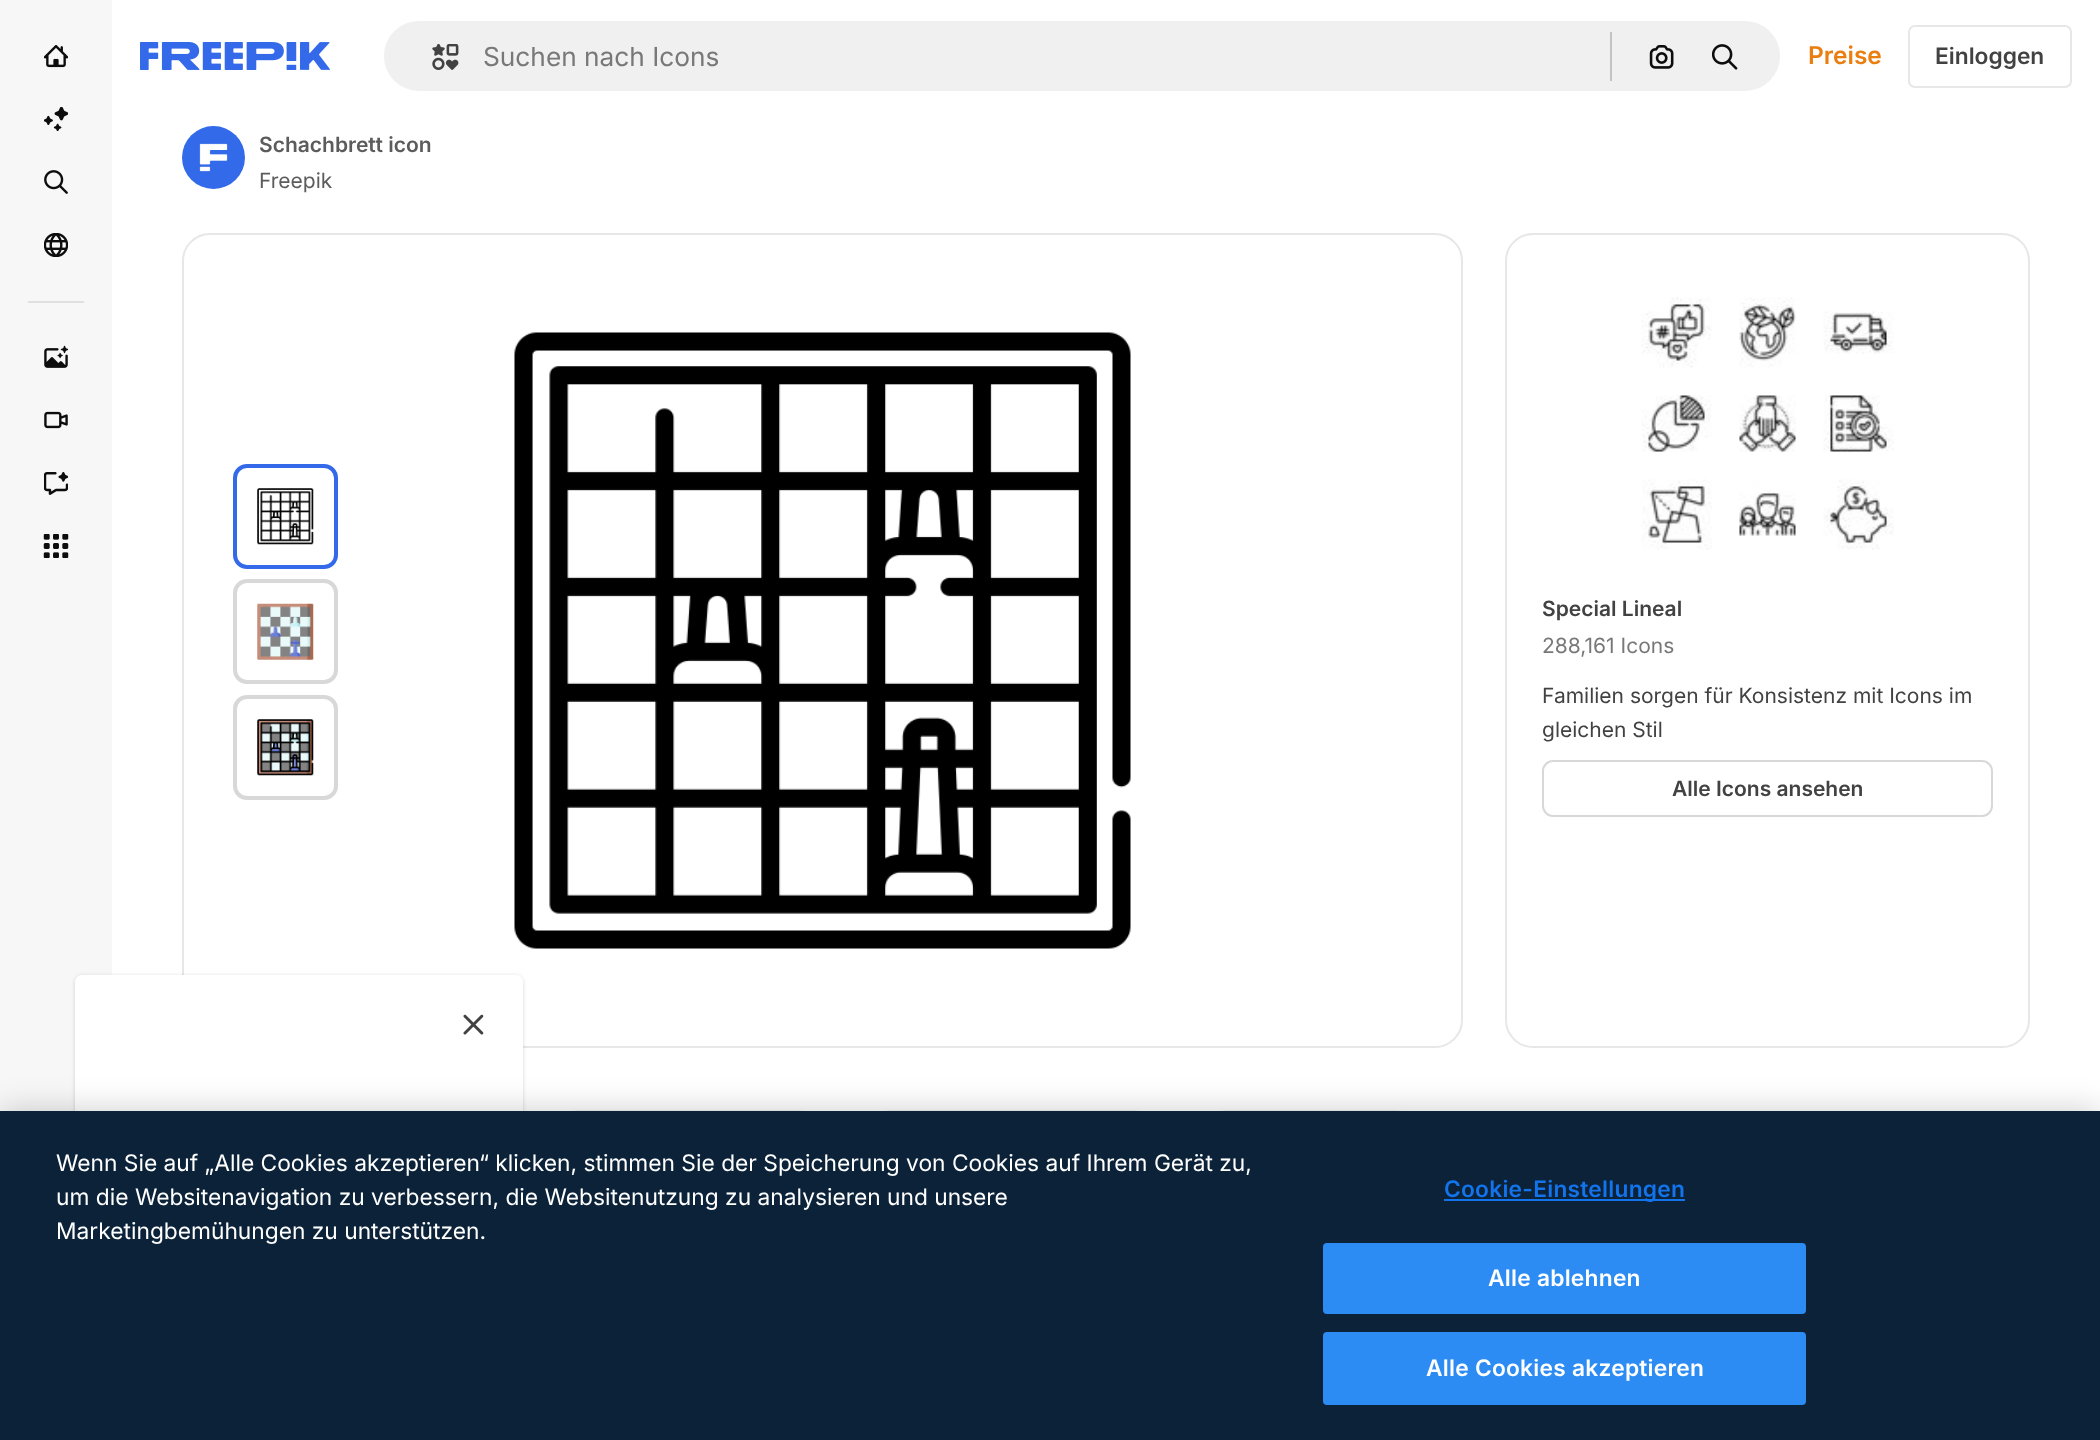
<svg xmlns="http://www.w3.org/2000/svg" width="2100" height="1440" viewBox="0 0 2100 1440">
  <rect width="100%" height="100%" fill="rgb(255,255,255)"/>
  <rect x="0" y="0" width="112" height="1111" fill="rgb(247,247,247)"/>
  <image x="44" y="45" width="24" height="23" href="pic1.png"/>
  <image x="44" y="107" width="24" height="24" href="pic2.png"/>
  <image x="44" y="170" width="24" height="24" href="pic3.png"/>
  <image x="44" y="233" width="24" height="24" href="pic4.png"/>
  <rect x="28" y="301" width="56" height="2" fill="rgb(224,224,224)"/>
  <image x="44" y="345" width="24" height="23" href="pic5.png"/>
  <image x="44" y="411" width="24" height="18" href="pic6.png"/>
  <image x="44" y="472" width="24" height="23" href="pic7.png"/>
  <image x="43" y="534" width="26" height="24" href="pic8.png"/>
  <image x="140" y="42" width="190" height="28" href="pic9.png"/>
  <rect x="383" y="20" width="1398" height="72" rx="36" fill="rgb(240,240,240)" stroke="rgb(255,255,255)" stroke-width="2"/>
  <image x="432" y="44" width="27" height="26" href="pic10.png"/>
  <text x="483" y="66" font-family="Inter" font-size="26.25" fill="rgb(120,120,120)">Suchen nach Icons</text>
  <rect x="1610" y="32" width="2" height="49" fill="rgb(195,195,195)"/>
  <image x="1649" y="45" width="25" height="24" href="pic11.png"/>
  <image x="1712" y="44" width="26" height="26" href="pic12.png"/>
  <text x="1808" y="64" font-family="Inter" font-size="24.5" font-weight="600" fill="rgb(234,126,17)">Preise</text>
  <rect x="1909" y="26" width="162" height="61" rx="6" fill="none" stroke="rgb(231,231,231)" stroke-width="2"/>
  <text x="1935" y="64" font-family="Inter" font-size="22.75" font-weight="600" fill="rgb(66,66,66)">Einloggen</text>
  <image x="182" y="126" width="63" height="63" href="pic13.png"/>
  <text x="259" y="152" font-family="Inter" font-size="21" font-weight="600" fill="rgb(92,92,92)">Schachbrett icon</text>
  <text x="259" y="188" font-family="Inter" font-size="21" fill="rgb(92,92,92)">Freepik</text>
  <rect x="183" y="234" width="1279" height="813" rx="27" fill="none" stroke="rgb(231,231,231)" stroke-width="2"/>
  <rect x="235" y="466" width="101" height="101" rx="12" fill="none" stroke="rgb(52,106,234)" stroke-width="4"/>
  <image x="257" y="488" width="57" height="57" href="pic14.png"/>
  <rect x="235" y="581" width="101" height="101" rx="12" fill="none" stroke="rgb(216,216,216)" stroke-width="4"/>
  <image x="257" y="603" width="57" height="57" href="pic15.png"/>
  <rect x="235" y="697" width="101" height="101" rx="12" fill="none" stroke="rgb(216,216,216)" stroke-width="4"/>
  <image x="257" y="719" width="57" height="57" href="pic16.png"/>
  <image x="514" y="332" width="617" height="617" href="pic17.png"/>
  <rect x="1506" y="234" width="523" height="813" rx="27" fill="none" stroke="rgb(231,231,231)" stroke-width="2"/>
  <image x="1641" y="297" width="253" height="253" href="pic18.png"/>
  <text x="1542" y="616" font-family="Inter" font-size="21" font-weight="600" fill="rgb(66,66,66)">Special Lineal</text>
  <text x="1542" y="653" font-family="Inter" font-size="21" fill="rgb(120,120,120)">288,161 Icons</text>
  <g font-family="Inter" font-size="21" fill="rgb(66,66,66)">
    <text>
      <tspan x="1542" y="703">Familien sorgen für Konsistenz mit Icons im</tspan>
      <tspan x="1542" y="737">gleichen Stil</tspan>
    </text>
  </g>
  <rect x="1543" y="761" width="449" height="55" rx="10" fill="none" stroke="rgb(216,216,216)" stroke-width="2"/>
  <text x="1672" y="796" font-family="Inter" font-size="21" font-weight="600" fill="rgb(66,66,66)">Alle Icons ansehen</text>
  <rect x="75" y="977" width="448" height="337" rx="7" fill="rgba(18,18,18,0.08)" filter="blur(2px)"/>
  <rect x="75" y="975" width="448" height="338" rx="7" fill="rgba(18,18,18,0.08)" filter="blur(2px)"/>
  <rect x="75" y="975" width="448" height="338" rx="7" fill="rgb(255,255,255)"/>
  <image x="463" y="1014" width="21" height="21" href="pic19.png"/>
  <rect x="546" y="1110" width="284" height="66" rx="33" fill="rgb(240,240,240)"/>
  <rect x="858" y="1110" width="308" height="66" rx="33" fill="rgb(240,240,240)"/>
  <rect x="1194" y="1110" width="234" height="66" rx="33" fill="rgb(240,240,240)"/>
  <rect x="0" y="1111" width="2100" height="329" fill="rgba(0,0,0,0.2)" filter="blur(16px)"/>
  <rect x="0" y="1111" width="2100" height="329" fill="rgb(11,34,57)"/>
  <g font-family="Inter" font-size="22.75" fill="rgb(255,255,255)">
    <text>
      <tspan x="56" y="1171">Wenn Sie auf „Alle Cookies akzeptieren“ klicken, stimmen Sie der Speicherung von Cookies auf Ihrem Gerät zu,</tspan>
      <tspan x="56" y="1205">um die Websitenavigation zu verbessern, die Websitenutzung zu analysieren und unsere</tspan>
      <tspan x="56" y="1239">Marketingbemühungen zu unterstützen.</tspan>
    </text>
  </g>
  <rect x="1444" y="1199" width="241" height="2" fill="rgb(18,115,235)"/>
  <text x="1444" y="1197" font-family="Inter" font-size="22.75" font-weight="600" letter-spacing="0.25" fill="rgb(18,115,235)">Cookie-Einstellungen</text>
  <rect x="1324" y="1244" width="481" height="69" rx="3" fill="rgb(44,140,244)" stroke="rgb(44,140,244)" stroke-width="2"/>
  <text x="1488" y="1286" font-family="Inter" font-size="22.75" font-weight="600" letter-spacing="0.25" fill="rgb(255,255,255)">Alle ablehnen</text>
  <rect x="1324" y="1333" width="481" height="71" rx="3" fill="rgb(44,140,244)" stroke="rgb(44,140,244)" stroke-width="2"/>
  <text x="1426" y="1376" font-family="Inter" font-size="22.75" font-weight="600" letter-spacing="0.25" fill="rgb(255,255,255)">Alle Cookies akzeptieren</text>
</svg>
